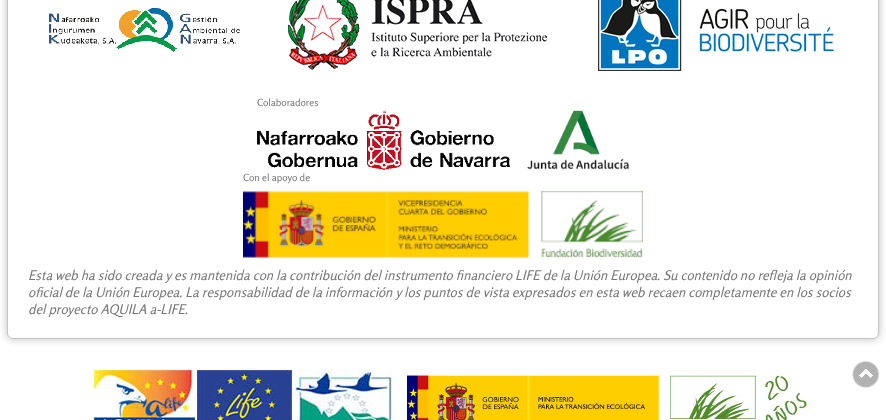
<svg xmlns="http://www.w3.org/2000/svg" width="886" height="420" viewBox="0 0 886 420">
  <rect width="100%" height="100%" fill="rgb(255,255,255)"/>
  <rect x="7" y="-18" width="872" height="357" rx="6" fill="rgb(189,189,189)" filter="blur(4px)"/>
  <rect x="7.5" y="-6.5" width="871" height="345" rx="5.5" fill="rgb(255,255,255)" stroke="rgb(197,197,197)"/>
  <image x="49" y="8" width="191" height="44" href="pic1.png"/>
  <image x="288" y="0" width="259" height="70" href="pic2.png"/>
  <image x="598" y="0" width="236" height="71" href="pic3.png"/>
  <text x="257" y="106" font-family="Rosario" font-size="10" fill="rgb(119,119,119)">Colaboradores</text>
  <image x="257" y="110" width="253" height="60" href="pic4.png"/>
  <image x="527" y="110" width="102" height="60" href="pic5.png"/>
  <text x="243" y="181" font-family="Rosario" font-size="10" fill="rgb(119,119,119)">Con el apoyo de</text>
  <image x="243" y="191" width="400" height="67" href="pic6.png"/>
  <g font-family="Rosario" font-size="13.33" font-style="italic" fill="rgb(119,119,119)">
    <text>
      <tspan x="28" y="280">Esta web ha sido creada y es mantenida con la contribución del instrumento financiero LIFE de la Unión Europea. Su contenido no refleja la opinión</tspan>
      <tspan x="28" y="297">oficial de la Unión Europea. La responsabilidad de la información y los puntos de vista expresados en esta web recaen completamente en los socios</tspan>
      <tspan x="28" y="314">del proyecto AQUILA a-LIFE.</tspan>
    </text>
  </g>
  <image x="93" y="369" width="720" height="51" href="pic7.png"/>
  <image x="852" y="360" width="28" height="28" href="pic8.png"/>
</svg>
